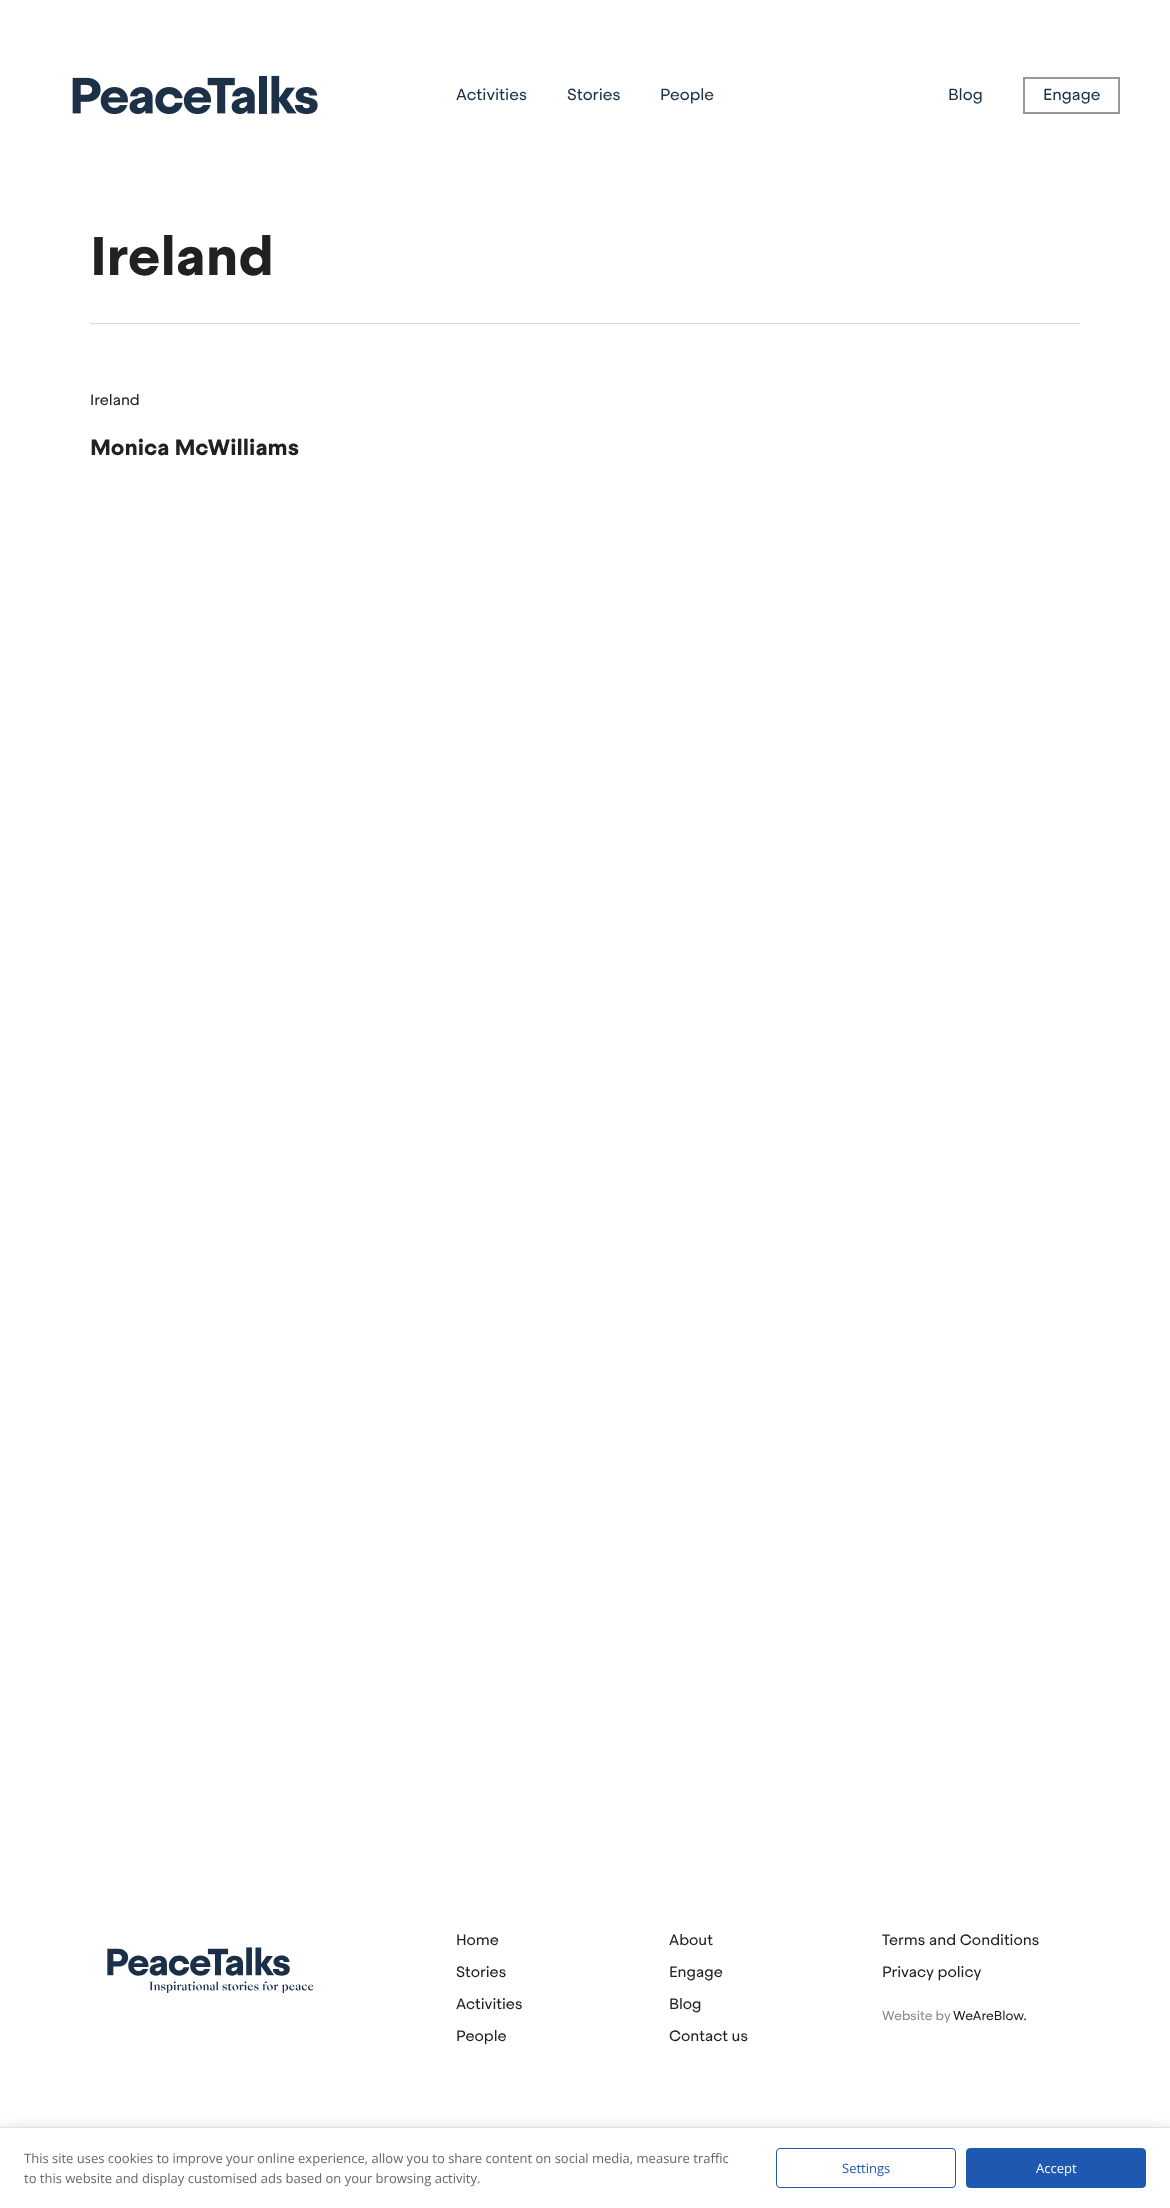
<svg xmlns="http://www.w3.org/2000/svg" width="1170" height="2208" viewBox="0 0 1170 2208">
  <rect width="100%" height="100%" fill="rgb(255,255,255)"/>
  <image x="72" y="75" width="246" height="40" href="pic1.png"/>
  <g font-family="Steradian" font-size="16" fill="rgb(28,48,71)">
    <text x="456" y="100">Activities</text>
    <text x="567" y="100">Stories</text>
    <text x="660" y="100">People</text>
    <text x="948" y="100">Blog</text>
  </g>
  <rect x="1024" y="78" width="95" height="35" fill="none" stroke="rgb(153,153,153)" stroke-width="2"/>
  <text x="1043" y="100" font-family="Steradian" font-size="16" fill="rgb(28,48,71)">Engage</text>
  <rect x="90" y="323" width="990" height="1" fill="rgb(217,217,217)"/>
  <text x="90" y="275" font-family="Steradian" font-size="54" font-weight="bold" fill="rgb(33,33,33)">Ireland</text>
  <text x="90" y="405" font-family="Steradian" font-size="15" fill="rgb(33,33,33)">Ireland</text>
  <text x="90" y="455" font-family="Steradian" font-size="22" font-weight="bold" fill="rgb(33,33,33)">Monica McWilliams</text>
  <image x="107" y="1947" width="207" height="46" href="pic2.png"/>
  <g font-family="Steradian" font-size="15" fill="rgb(33,33,33)">
    <text x="456" y="1945">Home</text>
    <text x="456" y="1977">Stories</text>
    <text x="456" y="2009">Activities</text>
    <text x="456" y="2041">People</text>
    <text x="669" y="1945">About</text>
    <text x="669" y="1977">Engage</text>
    <text x="669" y="2009">Blog</text>
    <text x="669" y="2041">Contact us</text>
    <text x="882" y="1945">Terms and Conditions</text>
    <text x="882" y="1977">Privacy policy</text>
  </g>
  <text x="882" y="2020" font-family="Steradian" font-size="12.75" fill="rgb(136,136,136)">Website by</text>
  <text x="953" y="2020" font-family="Steradian" font-size="12.75" fill="rgb(33,33,33)">WeAreBlow.</text>
  <rect x="-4" y="2134" width="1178" height="68" fill="rgba(36,47,66,0.31)" filter="blur(10px)"/>
  <rect x="-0.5" y="2127.5" width="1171" height="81" fill="none" stroke="rgba(36,47,66,0.08)"/>
  <rect x="0" y="2128" width="1170" height="80" fill="rgb(255,255,255)"/>
  <g font-family="Open Sans" font-size="13" fill="rgb(102,102,102)">
    <text>
      <tspan x="24" y="2163">This site uses cookies to improve your online experience, allow you to share content on social media, measure traffic</tspan>
      <tspan x="24" y="2183">to this website and display customised ads based on your browsing activity.</tspan>
    </text>
  </g>
  <rect x="776.5" y="2148.5" width="179" height="39" rx="3.5" fill="none" stroke="rgb(30,88,177)"/>
  <text x="842" y="2173" font-family="Open Sans" font-size="13" fill="rgb(30,88,177)">Settings</text>
  <rect x="966.5" y="2148.5" width="179" height="39" rx="3.5" fill="rgb(30,88,177)" stroke="rgb(30,88,177)"/>
  <text x="1036" y="2173" font-family="Open Sans" font-size="13" fill="rgb(255,255,255)">Accept</text>
</svg>
